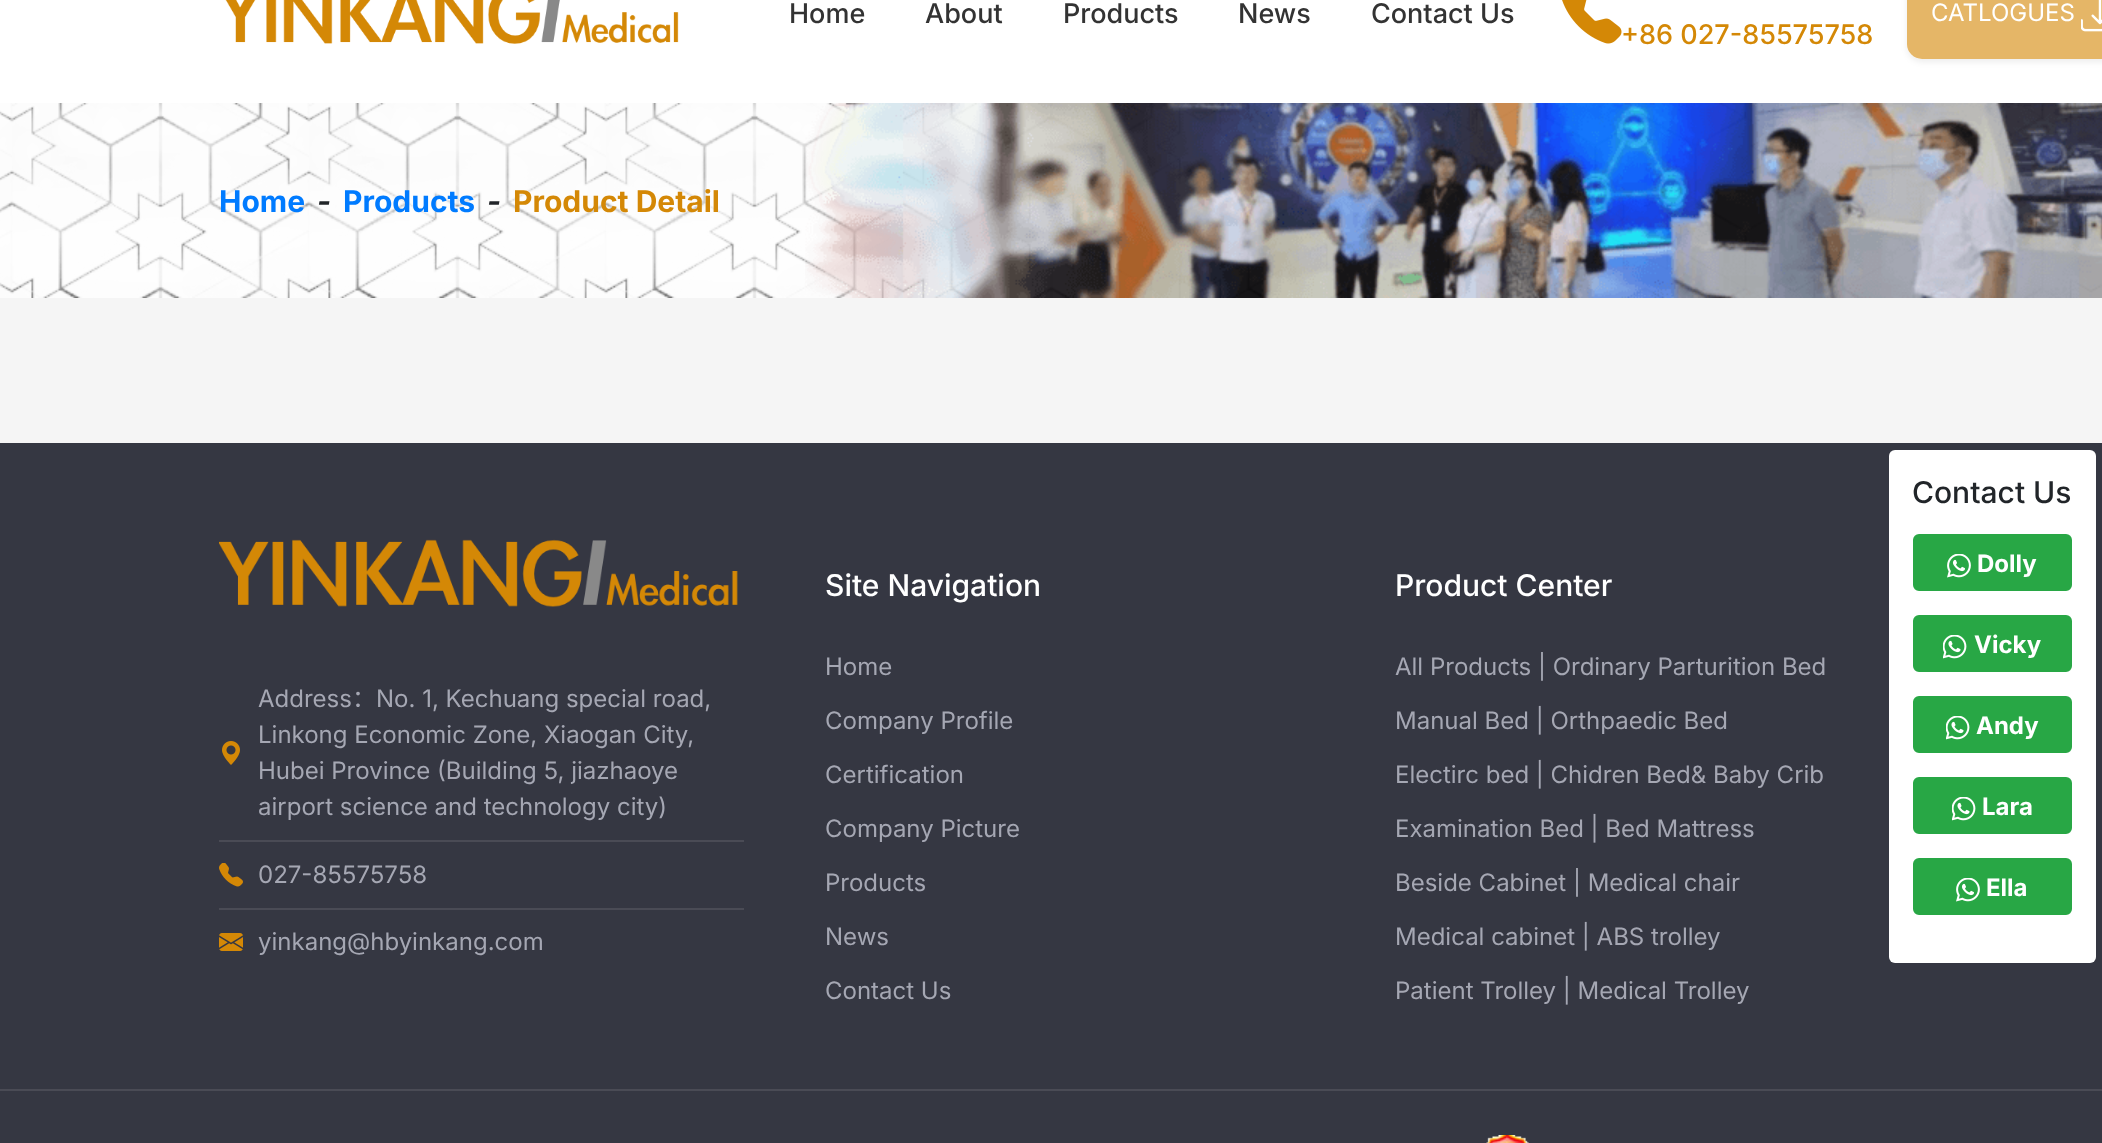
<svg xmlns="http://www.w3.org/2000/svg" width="2102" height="1143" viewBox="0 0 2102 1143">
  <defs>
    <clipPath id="clip1"><path d="M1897 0H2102V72H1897ZM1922-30H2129C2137.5-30 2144-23.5 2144-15V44C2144 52.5 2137.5 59 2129 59H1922C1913.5 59 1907 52.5 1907 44V-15C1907-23.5 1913.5-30 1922-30Z" clip-rule="evenodd"/></clipPath>
  </defs>
  <rect width="100%" height="100%" fill="rgb(245,245,245)"/>
  <rect x="0" y="0" width="2102" height="103" fill="rgb(255,255,255)"/>
  <image x="225" y="0" width="454" height="44" href="pic1.png"/>
  <g font-family="Inter" font-size="27" font-weight="500" fill="rgb(51,51,51)">
    <text x="789" y="23">Home</text>
    <text x="925" y="23">About</text>
    <text x="1063" y="23">Products</text>
    <text x="1238" y="23">News</text>
    <text x="1371" y="23">Contact Us</text>
  </g>
  <g clip-path="url(#clip1)">
    <rect x="1907" y="-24" width="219" height="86" rx="15" fill="rgba(0,0,0,0.07)" filter="blur(3px)"/>
  </g>
  <rect x="1907" y="-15" width="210" height="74" rx="15" fill="rgba(212,136,6,0.61)"/>
  <text x="1931" y="21" font-family="Inter" font-size="24" fill="rgb(255,255,255)">CATLOGUES</text>
  <image x="2081" y="0" width="21" height="32" href="pic2.png"/>
  <image x="1562" y="0" width="60" height="44" href="pic3.png"/>
  <text x="1621" y="44" font-family="Inter" font-size="27" font-weight="500" fill="rgb(212,136,6)">+86 027-85575758</text>
  <image x="0" y="103" width="2102" height="195" href="pic4.png"/>
  <text x="219" y="212" font-family="Inter" font-size="30" font-weight="bold" fill="rgb(0,123,255)">Home</text>
  <text x="317" y="212" font-family="Inter" font-size="30" font-weight="bold" font-style="italic" fill="rgb(33,37,41)">-</text>
  <text x="343" y="212" font-family="Inter" font-size="30" font-weight="bold" fill="rgb(0,123,255)">Products</text>
  <text x="487" y="212" font-family="Inter" font-size="30" font-weight="bold" font-style="italic" fill="rgb(33,37,41)">-</text>
  <text x="513" y="212" font-family="Inter" font-size="30" font-weight="bold" fill="rgb(212,136,6)">Product Detail</text>
  <image x="805" y="103" width="1297" height="195" href="pic5.png"/>
  <rect x="0" y="443" width="2102" height="700" fill="rgb(53,55,66)"/>
  <image x="219" y="539" width="519" height="68" href="pic6.png"/>
  <rect x="219" y="840" width="525" height="2" fill="rgb(74,75,85)"/>
  <image x="222" y="741" width="18" height="24" href="pic7.png"/>
  <text x="258" y="707" font-family="Inter" font-size="24" fill="rgb(165,167,179)">Address</text>
  <text x="352" y="707" font-family="Noto Sans CJK SC" font-size="24" fill="rgb(165,167,179)">：</text>
  <g font-family="Inter" font-size="24" fill="rgb(165,167,179)">
    <text x="376" y="707">No. 1, Kechuang special road,</text>
    <text>
      <tspan x="258" y="743">Linkong Economic Zone, Xiaogan City,</tspan>
      <tspan x="258" y="779">Hubei Province (Building 5, jiazhaoye</tspan>
      <tspan x="258" y="815">airport science and technology city)</tspan>
    </text>
  </g>
  <rect x="219" y="908" width="525" height="2" fill="rgb(74,75,85)"/>
  <image x="219" y="863" width="24" height="24" href="pic8.png"/>
  <text x="258" y="883" font-family="Inter" font-size="24" fill="rgb(165,167,179)">027-85575758</text>
  <image x="219" y="933" width="24" height="18" href="pic9.png"/>
  <text x="258" y="950" font-family="Inter" font-size="24" fill="rgb(165,167,179)">yinkang@hbyinkang.com</text>
  <text x="825" y="596" font-family="Inter" font-size="30" font-weight="500" fill="rgb(255,255,255)">Site Navigation</text>
  <g font-family="Inter" font-size="24" fill="rgb(165,167,179)">
    <text x="825" y="675">Home</text>
    <text x="825" y="729">Company Profile</text>
    <text x="825" y="783">Certification</text>
    <text x="825" y="837">Company Picture</text>
    <text x="825" y="891">Products</text>
    <text x="825" y="945">News</text>
    <text x="825" y="999">Contact Us</text>
  </g>
  <text x="1395" y="596" font-family="Inter" font-size="30" font-weight="500" fill="rgb(255,255,255)">Product Center</text>
  <g font-family="Inter" font-size="24" fill="rgb(165,167,179)">
    <text x="1395" y="675">All Products | Ordinary Parturition Bed</text>
    <text x="1395" y="729">Manual Bed | Orthpaedic Bed</text>
    <text x="1395" y="783">Electirc bed | Chidren Bed&amp; Baby Crib</text>
    <text x="1395" y="837">Examination Bed | Bed Mattress</text>
    <text x="1395" y="891">Beside Cabinet | Medical chair</text>
    <text x="1395" y="945">Medical cabinet | ABS trolley</text>
    <text x="1395" y="999">Patient Trolley | Medical Trolley</text>
  </g>
  <rect x="0" y="1089" width="2102" height="2" fill="rgb(74,75,85)"/>
  <image x="1486" y="1135" width="43" height="8" href="pic10.png"/>
  <rect x="1889" y="450" width="207" height="513" rx="6" fill="rgb(255,255,255)"/>
  <text x="1912" y="503" font-family="Inter" font-size="30" font-weight="500" fill="rgb(33,37,41)">Contact Us</text>
  <rect x="1914" y="535" width="157" height="55" rx="5" fill="rgb(40,167,69)" stroke="rgb(40,167,69)" stroke-width="2"/>
  <image x="1947" y="554" width="24" height="24" href="pic11.png"/>
  <text x="1977" y="572" font-family="Inter" font-size="24" font-weight="bold" fill="rgb(255,255,255)">Dolly</text>
  <rect x="1914" y="616" width="157" height="55" rx="5" fill="rgb(40,167,69)" stroke="rgb(40,167,69)" stroke-width="2"/>
  <image x="1943" y="635" width="24" height="24" href="pic12.png"/>
  <text x="1974" y="653" font-family="Inter" font-size="24" font-weight="bold" fill="rgb(255,255,255)">Vicky</text>
  <rect x="1914" y="697" width="157" height="55" rx="5" fill="rgb(40,167,69)" stroke="rgb(40,167,69)" stroke-width="2"/>
  <image x="1946" y="716" width="24" height="24" href="pic12.png"/>
  <text x="1976" y="734" font-family="Inter" font-size="24" font-weight="bold" fill="rgb(255,255,255)">Andy</text>
  <rect x="1914" y="778" width="157" height="55" rx="5" fill="rgb(40,167,69)" stroke="rgb(40,167,69)" stroke-width="2"/>
  <image x="1952" y="797" width="24" height="24" href="pic12.png"/>
  <text x="1982" y="815" font-family="Inter" font-size="24" font-weight="bold" fill="rgb(255,255,255)">Lara</text>
  <rect x="1914" y="859" width="157" height="55" rx="5" fill="rgb(40,167,69)" stroke="rgb(40,167,69)" stroke-width="2"/>
  <image x="1956" y="878" width="24" height="24" href="pic11.png"/>
  <text x="1986" y="896" font-family="Inter" font-size="24" font-weight="bold" fill="rgb(255,255,255)">Ella</text>
</svg>
